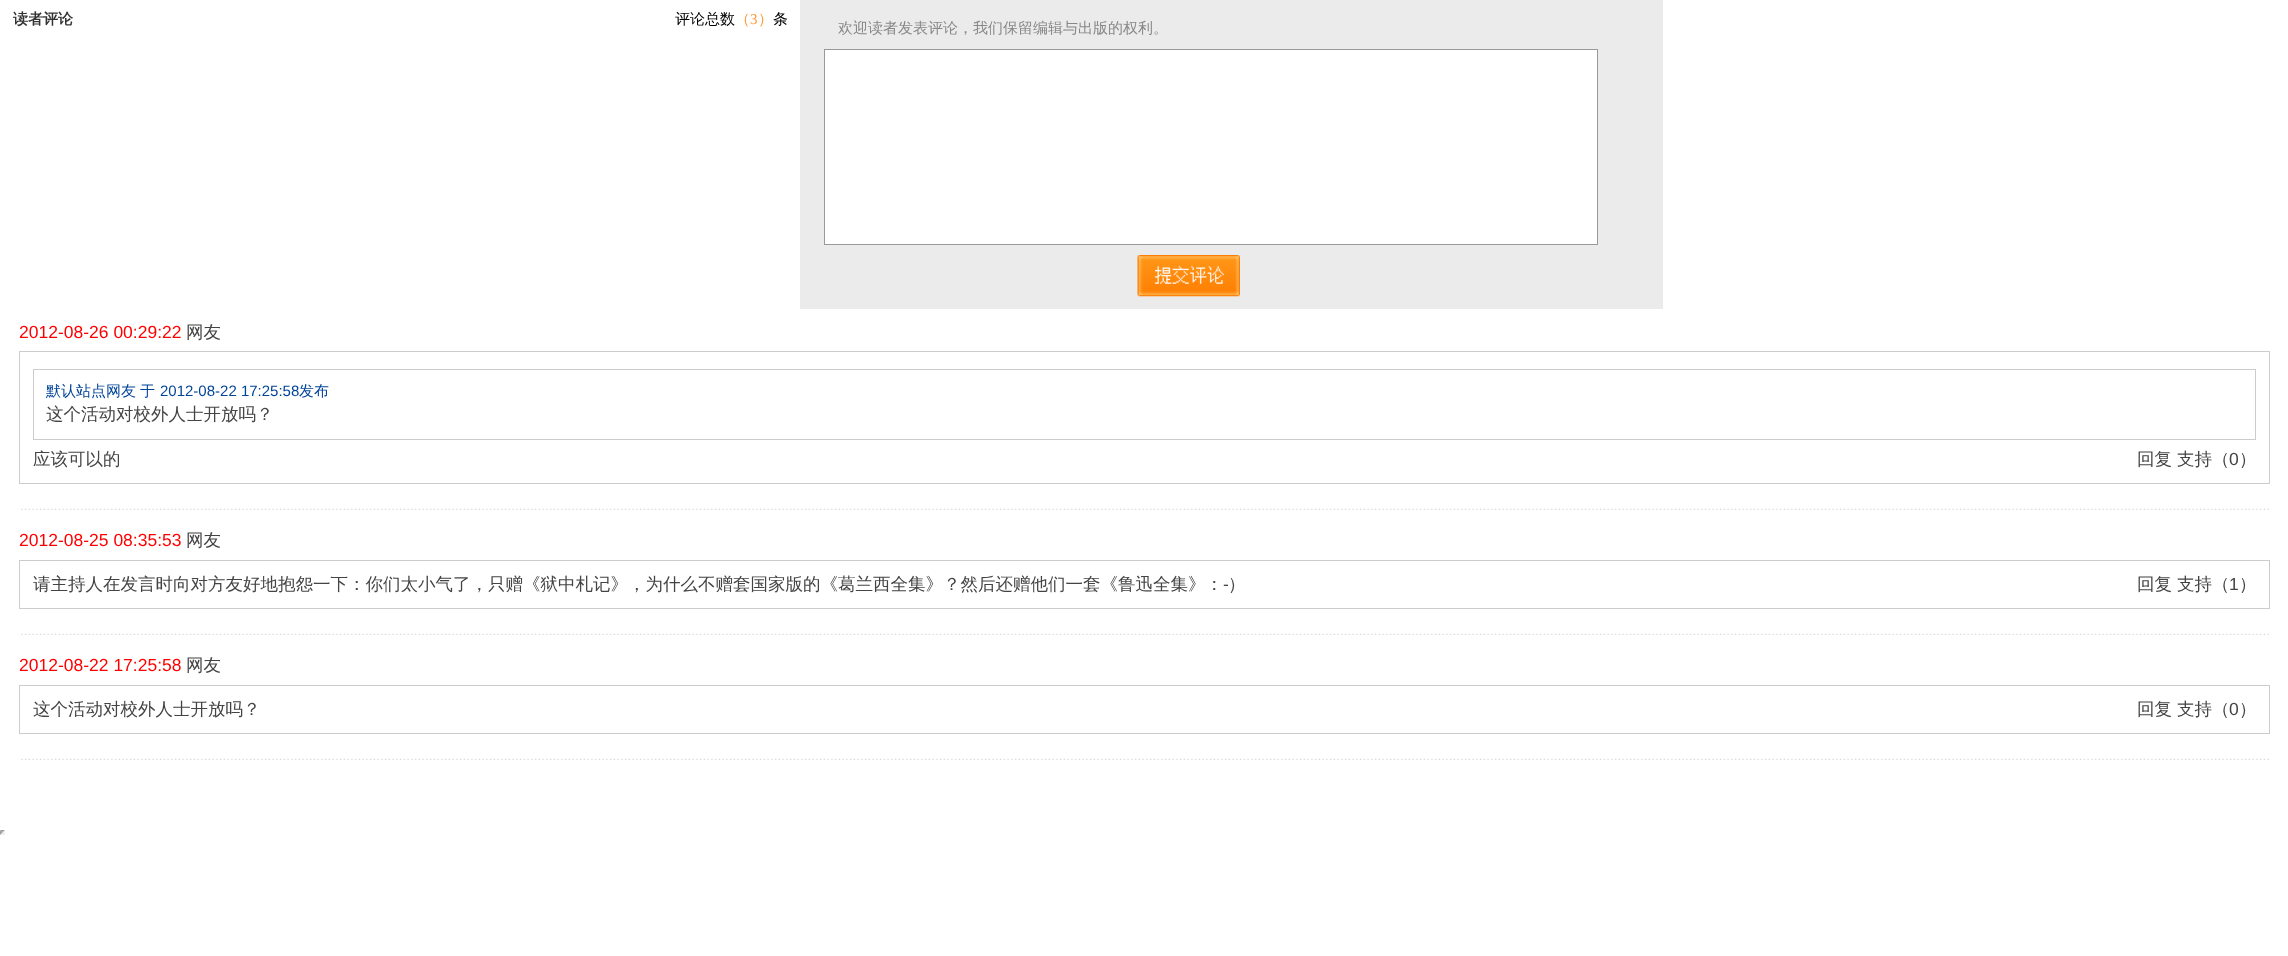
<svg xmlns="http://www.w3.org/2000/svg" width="2288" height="956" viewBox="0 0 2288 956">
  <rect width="100%" height="100%" fill="rgb(255,255,255)"/>
  <text x="13" y="24" font-family="WenQuanYi Zen Hei" font-size="15" font-weight="bold" fill="rgb(51,51,51)">读者评论</text>
  <text x="675" y="24" font-family="WenQuanYi Zen Hei" font-size="15" font-weight="500" fill="rgb(0,0,0)">评论总数</text>
  <text x="735" y="24" font-family="WenQuanYi Zen Hei" font-size="15" font-weight="500" fill="rgb(255,151,52)">（</text>
  <text x="750" y="24" font-family="Liberation Serif" font-size="15" fill="rgb(255,151,52)">3</text>
  <text x="758" y="24" font-family="WenQuanYi Zen Hei" font-size="15" font-weight="500" fill="rgb(255,151,52)">）</text>
  <text x="773" y="24" font-family="WenQuanYi Zen Hei" font-size="15" font-weight="500" fill="rgb(0,0,0)">条</text>
  <rect x="800" y="0" width="863" height="309" fill="rgb(235,235,235)"/>
  <text x="838" y="33" font-family="WenQuanYi Zen Hei" font-size="15" font-weight="500" fill="rgb(136,136,136)">欢迎读者发表评论，我们保留编辑与出版的权利。</text>
  <rect x="824.5" y="49.5" width="773" height="195" fill="rgb(255,255,255)" stroke="rgb(153,153,153)"/>
  <image x="1137" y="255" width="103" height="42" href="pic1.png"/>
  <text x="19" y="338" font-family="Liberation Sans" font-size="17.5" fill="rgb(255,0,0)">2012-08-26 00:29:22</text>
  <text x="186" y="338" font-family="WenQuanYi Zen Hei" font-size="17.5" font-weight="500" fill="rgb(68,68,68)">网友</text>
  <rect x="19.5" y="351.5" width="2250" height="132" fill="none" stroke="rgb(204,204,204)"/>
  <rect x="33.5" y="369.5" width="2222" height="70" fill="none" stroke="rgb(204,204,204)"/>
  <g font-family="WenQuanYi Zen Hei" font-size="15" font-weight="500" fill="rgb(0,68,153)">
    <text x="46" y="396">默认站点网友</text>
    <text x="140" y="396">于</text>
  </g>
  <text x="160" y="396" font-family="Liberation Sans" font-size="15" fill="rgb(0,68,153)">2012-08-22 17:25:58</text>
  <text x="299" y="396" font-family="WenQuanYi Zen Hei" font-size="15" font-weight="500" fill="rgb(0,68,153)">发布</text>
  <g font-family="WenQuanYi Zen Hei" font-size="17.5" font-weight="500" fill="rgb(68,68,68)">
    <text x="46" y="420">这个活动对校外人士开放吗？</text>
    <text x="33" y="465">应该可以的</text>
    <text x="2137" y="465">回复</text>
    <text x="2177" y="465">支持（</text>
  </g>
  <text x="2229" y="465" font-family="Liberation Sans" font-size="17.5" fill="rgb(68,68,68)">0</text>
  <text x="2239" y="465" font-family="WenQuanYi Zen Hei" font-size="17.5" font-weight="500" fill="rgb(68,68,68)">）</text>
  <image x="18" y="508" width="2251" height="2" href="pic2.png"/>
  <text x="19" y="546" font-family="Liberation Sans" font-size="17.5" fill="rgb(255,0,0)">2012-08-25 08:35:53</text>
  <text x="186" y="546" font-family="WenQuanYi Zen Hei" font-size="17.5" font-weight="500" fill="rgb(68,68,68)">网友</text>
  <rect x="19.5" y="560.5" width="2250" height="48" fill="none" stroke="rgb(204,204,204)"/>
  <text x="33" y="590" font-family="WenQuanYi Zen Hei" font-size="17.5" font-weight="500" fill="rgb(68,68,68)">请主持人在发言时向对方友好地抱怨一下：你们太小气了，只赠《狱中札记》，为什么不赠套国家版的《葛兰西全集》？然后还赠他们一套《鲁迅全集》：</text>
  <text x="1223" y="590" font-family="Liberation Sans" font-size="17.5" fill="rgb(68,68,68)">-</text>
  <g font-family="WenQuanYi Zen Hei" font-size="17.5" font-weight="500" fill="rgb(68,68,68)">
    <text x="1228" y="590">）</text>
    <text x="2137" y="590">回复</text>
    <text x="2177" y="590">支持（</text>
  </g>
  <text x="2229" y="590" font-family="Liberation Sans" font-size="17.5" fill="rgb(68,68,68)">1</text>
  <text x="2239" y="590" font-family="WenQuanYi Zen Hei" font-size="17.5" font-weight="500" fill="rgb(68,68,68)">）</text>
  <image x="18" y="633" width="2251" height="2" href="pic2.png"/>
  <text x="19" y="671" font-family="Liberation Sans" font-size="17.5" fill="rgb(255,0,0)">2012-08-22 17:25:58</text>
  <text x="186" y="671" font-family="WenQuanYi Zen Hei" font-size="17.5" font-weight="500" fill="rgb(68,68,68)">网友</text>
  <rect x="19.5" y="685.5" width="2250" height="48" fill="none" stroke="rgb(204,204,204)"/>
  <g font-family="WenQuanYi Zen Hei" font-size="17.5" font-weight="500" fill="rgb(68,68,68)">
    <text x="33" y="715">这个活动对校外人士开放吗？</text>
    <text x="2137" y="715">回复</text>
    <text x="2177" y="715">支持（</text>
  </g>
  <text x="2229" y="715" font-family="Liberation Sans" font-size="17.5" fill="rgb(68,68,68)">0</text>
  <text x="2239" y="715" font-family="WenQuanYi Zen Hei" font-size="17.5" font-weight="500" fill="rgb(68,68,68)">）</text>
  <image x="18" y="758" width="2251" height="2" href="pic2.png"/>
  <path d="M0 830H5L2.5 832.5Z" fill="rgb(159,159,159)"/>
  <path d="M5 830V835L2.5 832.5Z" fill="rgb(238,238,238)"/>
  <path d="M5 835H0L2.5 832.5Z" fill="rgb(238,238,238)"/>
  <path d="M0 835V830L2.5 832.5Z" fill="rgb(159,159,159)"/>
</svg>
